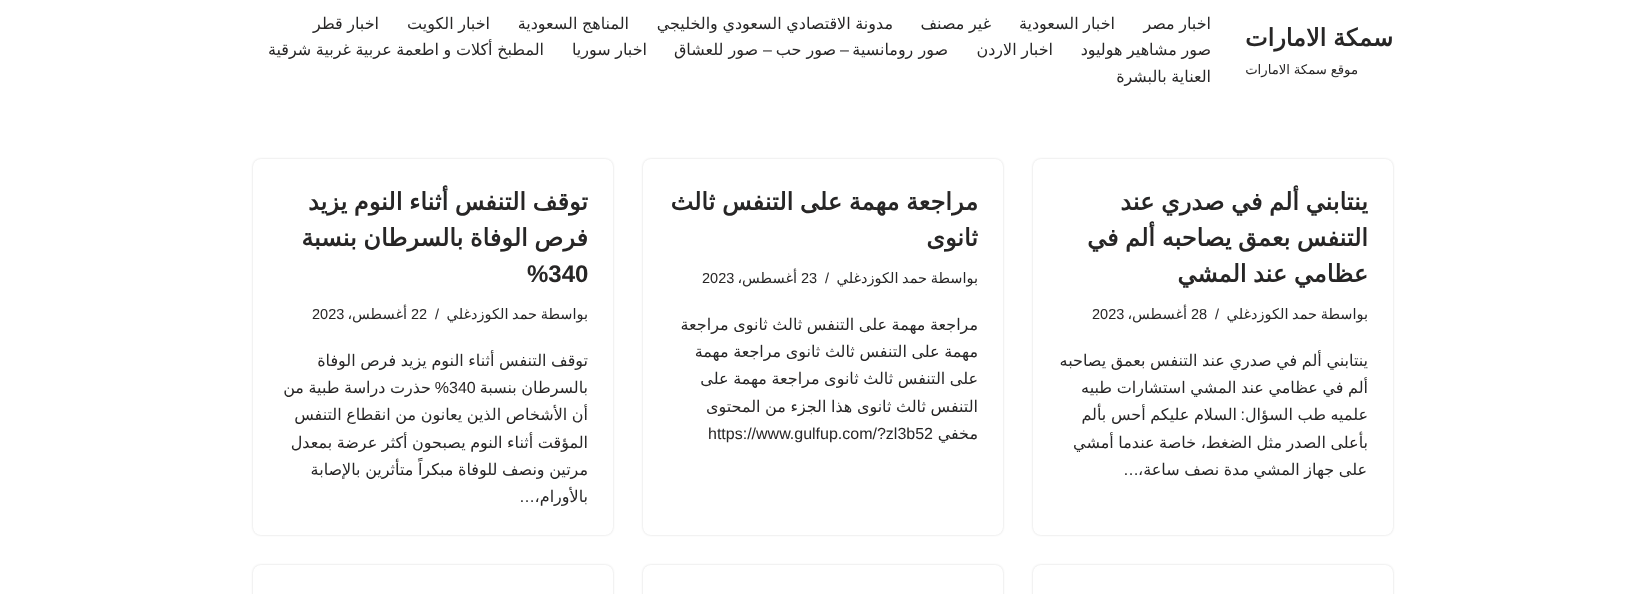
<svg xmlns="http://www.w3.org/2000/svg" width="1646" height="594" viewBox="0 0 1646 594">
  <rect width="100%" height="100%" fill="rgb(255,255,255)"/>
  <text x="1393" y="46" word-spacing="-1" font-family="DejaVu Sans" font-size="24" font-weight="bold" direction="rtl" fill="rgb(39,38,38)">سمكة الامارات</text>
  <text x="1358" y="74" word-spacing="-0.5" font-family="DejaVu Sans" font-size="13.25" direction="rtl" fill="rgb(39,38,38)">موقع سمكة الامارات</text>
  <g font-family="DejaVu Sans" font-size="16" direction="rtl" fill="rgb(39,38,38)">
    <text x="1211" y="29" word-spacing="-0.5">اخبار مصر</text>
    <text x="1115" y="29" word-spacing="-0.5">اخبار السعودية</text>
    <text x="991" y="29" word-spacing="-0.5">غير مصنف</text>
    <text x="893" y="29" word-spacing="-0.5">مدونة الاقتصادي السعودي والخليجي</text>
    <text x="629" y="29" word-spacing="-0.5">المناهج السعودية</text>
    <text x="490" y="29" word-spacing="-0.5">اخبار الكويت</text>
    <text x="379" y="29" word-spacing="-0.5">اخبار قطر</text>
    <text x="1211" y="55" word-spacing="-0.5">صور مشاهير هوليود</text>
    <text x="1053" y="55" word-spacing="-0.5">اخبار الاردن</text>
    <text x="948" y="55">صور رومانسية</text>
  </g>
  <text x="849" y="55" font-family="Liberation Sans" font-size="16" direction="rtl" fill="rgb(39,38,38)">–</text>
  <text x="836" y="55" font-family="DejaVu Sans" font-size="16" direction="rtl" fill="rgb(39,38,38)">صور حب</text>
  <text x="772" y="55" font-family="Liberation Sans" font-size="16" direction="rtl" fill="rgb(39,38,38)">–</text>
  <g font-family="DejaVu Sans" font-size="16" direction="rtl" fill="rgb(39,38,38)">
    <text x="758" y="55">صور للعشاق</text>
    <text x="647" y="55" word-spacing="-0.5">اخبار سوريا</text>
    <text x="544" y="55" word-spacing="-0.5">المطبخ أكلات و اطعمة عربية غربية شرقية</text>
    <text x="1211" y="82" word-spacing="-0.5">العناية بالبشرة</text>
  </g>
  <rect x="1033" y="159" width="360" height="376" rx="8" fill="rgba(0,0,0,0.15)" filter="blur(1px)"/>
  <rect x="1033" y="159" width="360" height="376" rx="8" fill="rgb(255,255,255)"/>
  <g font-family="DejaVu Sans" font-size="24" font-weight="bold" direction="rtl" fill="rgb(39,38,38)">
    <text>
      <tspan x="1368" y="210" word-spacing="-1">ينتابني ألم في صدري عند</tspan>
      <tspan x="1368" y="246" word-spacing="-1">التنفس بعمق يصاحبه ألم في</tspan>
      <tspan x="1368" y="282" word-spacing="-1">عظامي عند المشي</tspan>
    </text>
  </g>
  <g font-family="DejaVu Sans" font-size="14.5" direction="rtl" fill="rgb(39,38,38)">
    <text x="1368" y="319">بواسطة</text>
    <text x="1317" y="319" word-spacing="-1">حمد الكوزدغلي</text>
  </g>
  <g font-family="Liberation Sans" font-size="14.5" fill="rgb(39,38,38)">
    <text x="1215" y="319">/</text>
    <text x="1191" y="319">28</text>
  </g>
  <text x="1187" y="319" font-family="DejaVu Sans" font-size="14.5" direction="rtl" fill="rgb(39,38,38)">أغسطس،</text>
  <text x="1092" y="319" font-family="Liberation Sans" font-size="14.5" fill="rgb(39,38,38)">2023</text>
  <g font-family="DejaVu Sans" font-size="16" direction="rtl" fill="rgb(39,38,38)">
    <text>
      <tspan x="1368" y="366" word-spacing="-0.5">ينتابني ألم في صدري عند التنفس بعمق يصاحبه</tspan>
      <tspan x="1368" y="393" word-spacing="-0.5">ألم في عظامي عند المشي استشارات طبيه</tspan>
      <tspan x="1368" y="420" word-spacing="-0.5">علميه طب السؤال</tspan>
    </text>
  </g>
  <text x="1245" y="420" font-family="Liberation Sans" font-size="16" direction="rtl" fill="rgb(39,38,38)">:</text>
  <g font-family="DejaVu Sans" font-size="16" direction="rtl" fill="rgb(39,38,38)">
    <text x="1237" y="420" word-spacing="-0.5">السلام عليكم أحس بألم</text>
    <text x="1368" y="448" word-spacing="-0.5">بأعلى الصدر مثل الضغط، خاصة عندما أمشي</text>
    <text x="1367" y="475" word-spacing="-0.5">على جهاز المشي مدة نصف ساعة،</text>
  </g>
  <text x="1139" y="475" font-family="Liberation Sans" font-size="16" direction="rtl" fill="rgb(39,38,38)">…</text>
  <rect x="643" y="159" width="360" height="376" rx="8" fill="rgba(0,0,0,0.15)" filter="blur(1px)"/>
  <rect x="643" y="159" width="360" height="376" rx="8" fill="rgb(255,255,255)"/>
  <g font-family="DejaVu Sans" font-size="24" font-weight="bold" direction="rtl" fill="rgb(39,38,38)">
    <text>
      <tspan x="978" y="210" word-spacing="-1">مراجعة مهمة على التنفس ثالث</tspan>
      <tspan x="978" y="246">ثانوى</tspan>
    </text>
  </g>
  <g font-family="DejaVu Sans" font-size="14.5" direction="rtl" fill="rgb(39,38,38)">
    <text x="978" y="283">بواسطة</text>
    <text x="927" y="283" word-spacing="-1">حمد الكوزدغلي</text>
  </g>
  <g font-family="Liberation Sans" font-size="14.5" fill="rgb(39,38,38)">
    <text x="825" y="283">/</text>
    <text x="801" y="283">23</text>
  </g>
  <text x="797" y="283" font-family="DejaVu Sans" font-size="14.5" direction="rtl" fill="rgb(39,38,38)">أغسطس،</text>
  <text x="702" y="283" font-family="Liberation Sans" font-size="14.5" fill="rgb(39,38,38)">2023</text>
  <g font-family="DejaVu Sans" font-size="16" direction="rtl" fill="rgb(39,38,38)">
    <text>
      <tspan x="978" y="330" word-spacing="-0.5">مراجعة مهمة على التنفس ثالث ثانوى مراجعة</tspan>
      <tspan x="978" y="357" word-spacing="-0.5">مهمة على التنفس ثالث ثانوى مراجعة مهمة</tspan>
      <tspan x="978" y="384" word-spacing="-0.5">على التنفس ثالث ثانوى مراجعة مهمة على</tspan>
      <tspan x="978" y="412" word-spacing="-0.5">التنفس ثالث ثانوى هذا الجزء من المحتوى</tspan>
      <tspan x="978" y="439">مخفي</tspan>
    </text>
  </g>
  <text x="708" y="439" font-family="Liberation Sans" font-size="16" fill="rgb(39,38,38)">https://www.gulfup.com/?zl3b52</text>
  <rect x="253" y="159" width="360" height="376" rx="8" fill="rgba(0,0,0,0.15)" filter="blur(1px)"/>
  <rect x="253" y="159" width="360" height="376" rx="8" fill="rgb(255,255,255)"/>
  <g font-family="DejaVu Sans" font-size="24" font-weight="bold" direction="rtl" fill="rgb(39,38,38)">
    <text>
      <tspan x="588" y="210" word-spacing="-1">توقف التنفس أثناء النوم يزيد</tspan>
      <tspan x="588" y="246" word-spacing="-1">فرص الوفاة بالسرطان بنسبة</tspan>
    </text>
  </g>
  <text x="527" y="282" font-family="Liberation Sans" font-size="24" font-weight="bold" fill="rgb(39,38,38)">%340</text>
  <g font-family="DejaVu Sans" font-size="14.5" direction="rtl" fill="rgb(39,38,38)">
    <text x="588" y="319">بواسطة</text>
    <text x="537" y="319" word-spacing="-1">حمد الكوزدغلي</text>
  </g>
  <g font-family="Liberation Sans" font-size="14.5" fill="rgb(39,38,38)">
    <text x="435" y="319">/</text>
    <text x="411" y="319">22</text>
  </g>
  <text x="407" y="319" font-family="DejaVu Sans" font-size="14.5" direction="rtl" fill="rgb(39,38,38)">أغسطس،</text>
  <text x="312" y="319" font-family="Liberation Sans" font-size="14.5" fill="rgb(39,38,38)">2023</text>
  <g font-family="DejaVu Sans" font-size="16" direction="rtl" fill="rgb(39,38,38)">
    <text>
      <tspan x="588" y="366" word-spacing="-0.5">توقف التنفس أثناء النوم يزيد فرص الوفاة</tspan>
      <tspan x="588" y="393" word-spacing="-0.5">بالسرطان بنسبة</tspan>
    </text>
  </g>
  <text x="449" y="393" font-family="Liberation Sans" font-size="16" fill="rgb(39,38,38)">340</text>
  <text x="449" y="393" font-family="Liberation Sans" font-size="16" direction="rtl" fill="rgb(39,38,38)">%</text>
  <g font-family="DejaVu Sans" font-size="16" direction="rtl" fill="rgb(39,38,38)">
    <text x="431" y="393" word-spacing="-0.5">حذرت دراسة طبية من</text>
    <text>
      <tspan x="588" y="420" word-spacing="-0.5">أن الأشخاص الذين يعانون من انقطاع التنفس</tspan>
      <tspan x="588" y="448" word-spacing="-0.5">المؤقت أثناء النوم يصبحون أكثر عرضة بمعدل</tspan>
      <tspan x="588" y="475" word-spacing="-0.5">مرتين ونصف للوفاة مبكراً متأثرين بالإصابة</tspan>
      <tspan x="588" y="502">بالأورام،</tspan>
    </text>
  </g>
  <text x="535" y="502" font-family="Liberation Sans" font-size="16" direction="rtl" fill="rgb(39,38,38)">…</text>
  <rect x="1033" y="565" width="360" height="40" rx="8" fill="rgba(0,0,0,0.15)" filter="blur(1px)"/>
  <rect x="1033" y="565" width="360" height="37" rx="8" fill="rgb(255,255,255)"/>
  <rect x="643" y="565" width="360" height="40" rx="8" fill="rgba(0,0,0,0.15)" filter="blur(1px)"/>
  <rect x="643" y="565" width="360" height="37" rx="8" fill="rgb(255,255,255)"/>
  <rect x="253" y="565" width="360" height="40" rx="8" fill="rgba(0,0,0,0.15)" filter="blur(1px)"/>
  <rect x="253" y="565" width="360" height="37" rx="8" fill="rgb(255,255,255)"/>
</svg>
